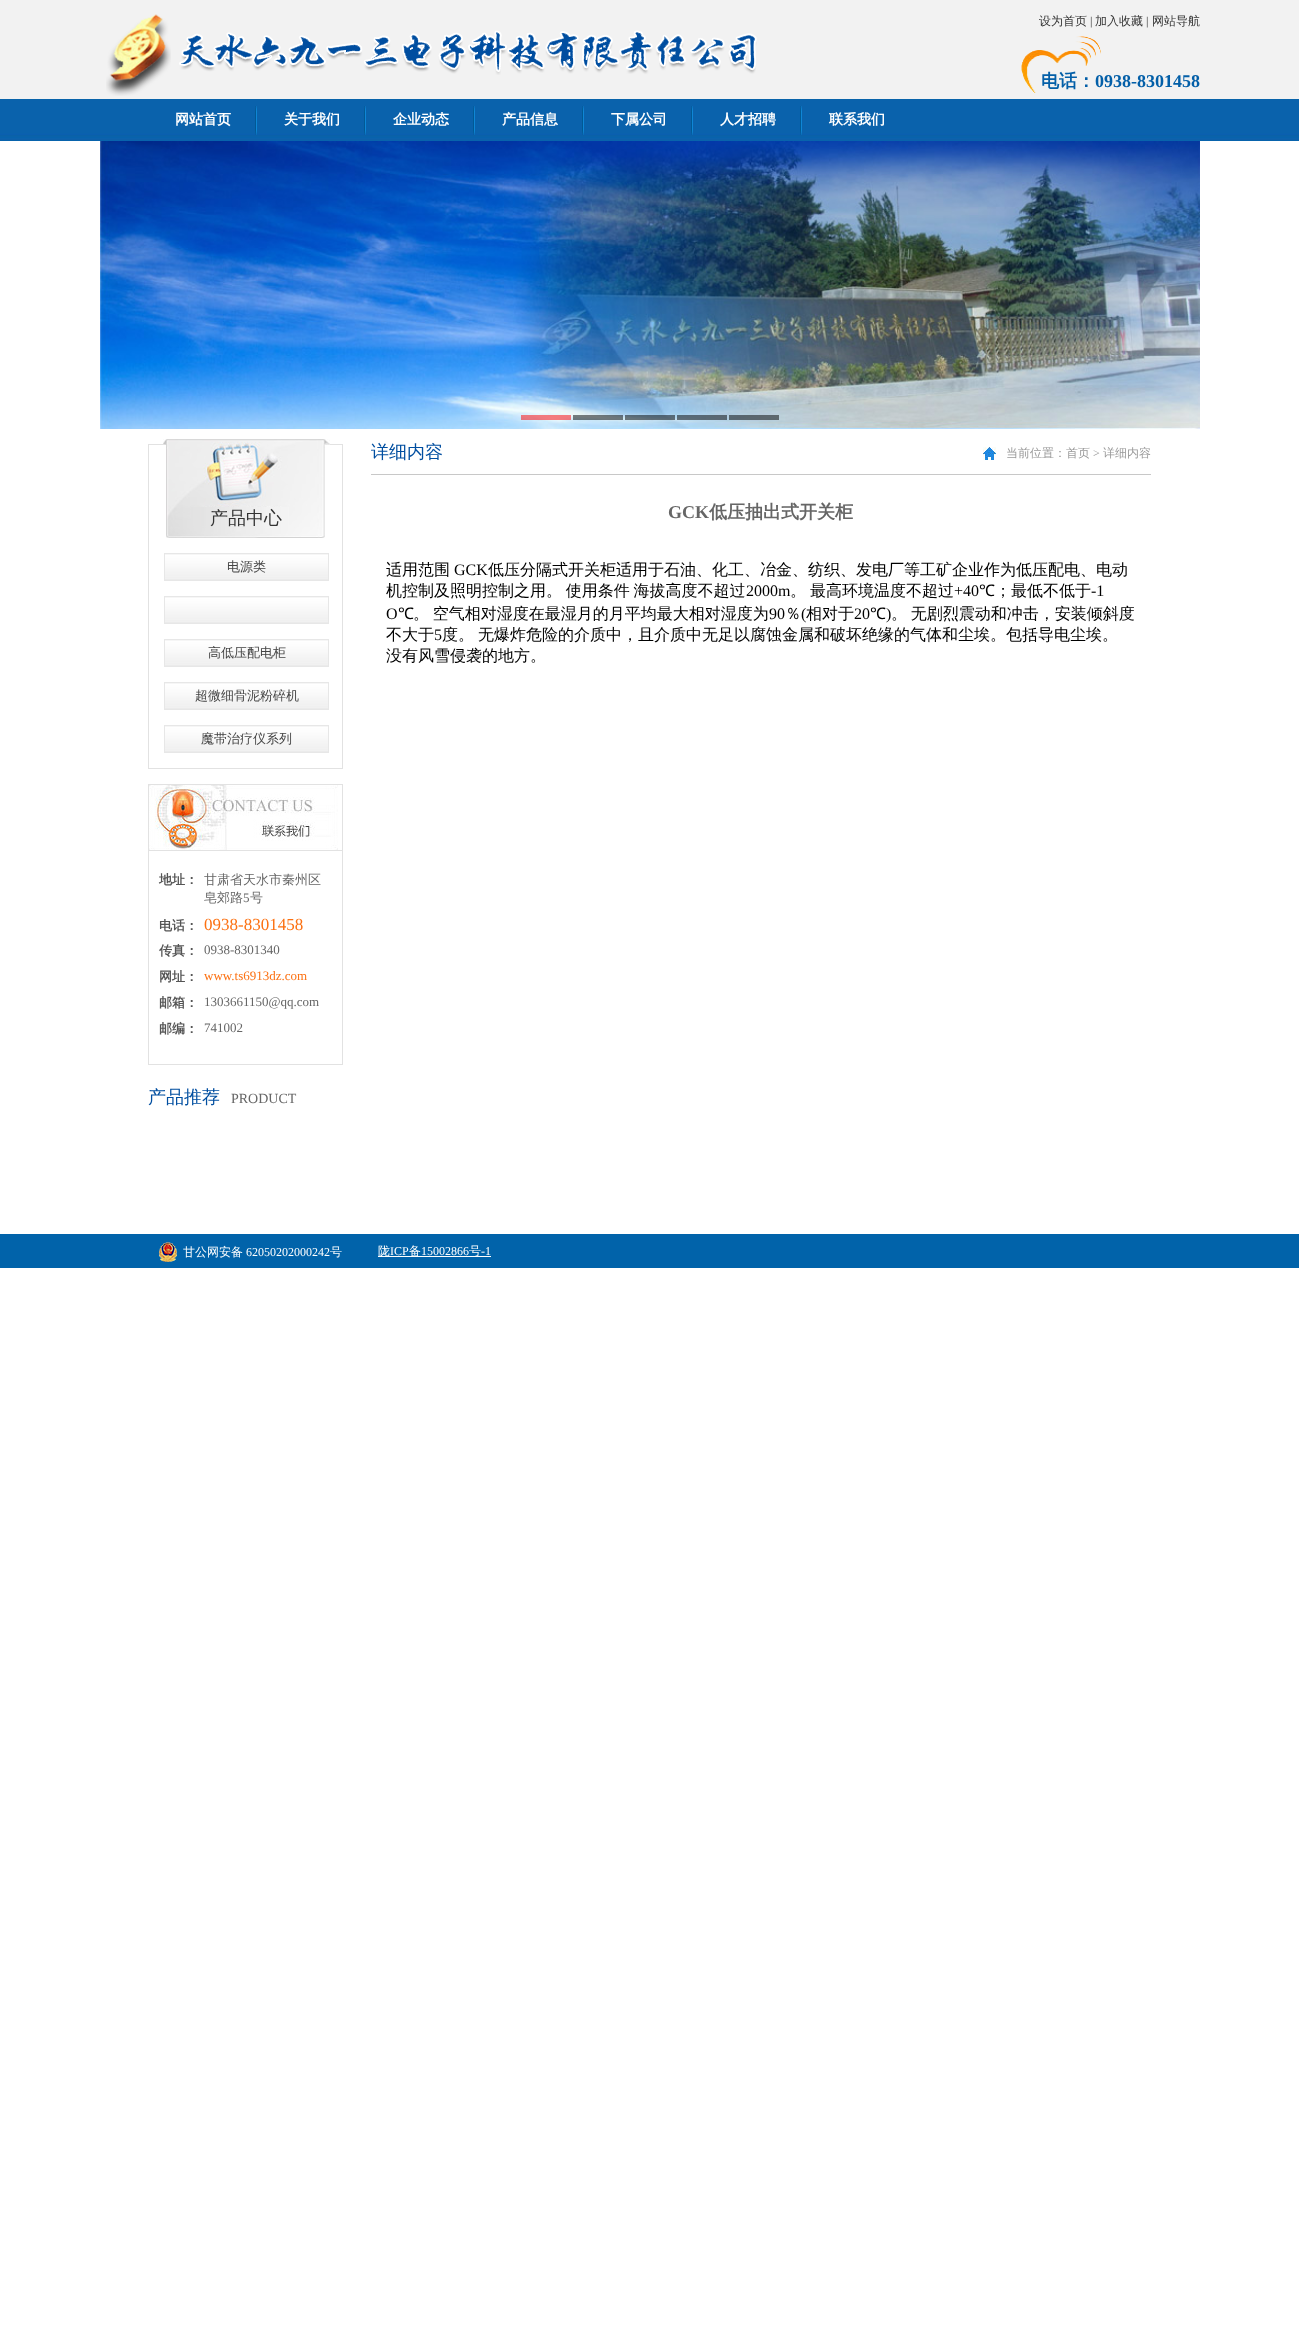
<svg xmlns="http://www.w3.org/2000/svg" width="1299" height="2350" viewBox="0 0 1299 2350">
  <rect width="100%" height="100%" fill="rgb(255,255,255)"/>
  <rect x="0" y="0" width="1299" height="99" fill="rgb(242,242,242)"/>
  <image x="106" y="14" width="65" height="82" href="pic1.png"/>
  <image x="179" y="30" width="578" height="45" href="pic2.png"/>
  <text x="1039" y="25" font-family="WenQuanYi Zen Hei" font-size="12" font-weight="500" fill="rgb(51,51,51)">设为首页</text>
  <text x="1090" y="25" font-family="Liberation Serif" font-size="12" fill="rgb(51,51,51)">|</text>
  <text x="1095" y="25" font-family="WenQuanYi Zen Hei" font-size="12" font-weight="500" fill="rgb(51,51,51)">加入收藏</text>
  <text x="1146" y="25" font-family="Liberation Serif" font-size="12" fill="rgb(51,51,51)">|</text>
  <text x="1152" y="25" font-family="WenQuanYi Zen Hei" font-size="12" font-weight="500" fill="rgb(51,51,51)">网站导航</text>
  <image x="1021" y="36" width="80" height="57" href="pic3.png"/>
  <text x="1041" y="87" font-family="WenQuanYi Zen Hei" font-size="18" font-weight="bold" fill="rgb(3,95,168)">电话：</text>
  <text x="1095" y="87" font-family="Liberation Serif" font-size="18" font-weight="bold" fill="rgb(3,95,168)">0938-8301458</text>
  <image x="0" y="99" width="1299" height="42" href="pic4.png"/>
  <image x="255" y="106" width="2" height="29" href="pic5.png"/>
  <text x="175" y="124" font-family="WenQuanYi Zen Hei" font-size="14" font-weight="bold" fill="rgb(255,255,255)">网站首页</text>
  <image x="364" y="106" width="2" height="29" href="pic5.png"/>
  <text x="284" y="124" font-family="WenQuanYi Zen Hei" font-size="14" font-weight="bold" fill="rgb(255,255,255)">关于我们</text>
  <image x="473" y="106" width="2" height="29" href="pic5.png"/>
  <text x="393" y="124" font-family="WenQuanYi Zen Hei" font-size="14" font-weight="bold" fill="rgb(255,255,255)">企业动态</text>
  <image x="582" y="106" width="2" height="29" href="pic5.png"/>
  <text x="502" y="124" font-family="WenQuanYi Zen Hei" font-size="14" font-weight="bold" fill="rgb(255,255,255)">产品信息</text>
  <image x="691" y="106" width="2" height="29" href="pic5.png"/>
  <text x="611" y="124" font-family="WenQuanYi Zen Hei" font-size="14" font-weight="bold" fill="rgb(255,255,255)">下属公司</text>
  <image x="800" y="106" width="2" height="29" href="pic5.png"/>
  <g font-family="WenQuanYi Zen Hei" font-size="14" font-weight="bold" fill="rgb(255,255,255)">
    <text x="720" y="124">人才招聘</text>
    <text x="829" y="124">联系我们</text>
  </g>
  <image x="100" y="141" width="1100" height="288" href="pic6.png"/>
  <rect x="521" y="415" width="50" height="5" fill="rgba(255,0,0,0.5)"/>
  <rect x="573" y="415" width="50" height="5" fill="rgba(0,0,0,0.5)"/>
  <rect x="625" y="415" width="50" height="5" fill="rgba(0,0,0,0.5)"/>
  <rect x="677" y="415" width="50" height="5" fill="rgba(0,0,0,0.5)"/>
  <rect x="729" y="415" width="50" height="5" fill="rgba(0,0,0,0.5)"/>
  <rect x="148.5" y="444.5" width="194" height="324" fill="none" stroke="rgb(226,226,226)"/>
  <image x="163" y="439" width="167" height="99" href="pic7.png"/>
  <text x="210" y="524" font-family="WenQuanYi Zen Hei" font-size="18" font-weight="500" fill="rgb(51,51,51)">产品中心</text>
  <image x="165" y="554" width="163" height="26" href="pic8.png"/>
  <rect x="164.5" y="553.5" width="164" height="27" fill="none" stroke="rgb(231,231,231)"/>
  <text x="227" y="571" font-family="WenQuanYi Zen Hei" font-size="13" font-weight="500" fill="rgb(68,68,68)">电源类</text>
  <image x="165" y="597" width="163" height="26" href="pic8.png"/>
  <rect x="164.5" y="596.5" width="164" height="27" fill="none" stroke="rgb(231,231,231)"/>
  <image x="165" y="640" width="163" height="26" href="pic8.png"/>
  <rect x="164.5" y="639.5" width="164" height="27" fill="none" stroke="rgb(231,231,231)"/>
  <text x="208" y="657" font-family="WenQuanYi Zen Hei" font-size="13" font-weight="500" fill="rgb(68,68,68)">高低压配电柜</text>
  <image x="165" y="683" width="163" height="26" href="pic8.png"/>
  <rect x="164.5" y="682.5" width="164" height="27" fill="none" stroke="rgb(231,231,231)"/>
  <text x="195" y="700" font-family="WenQuanYi Zen Hei" font-size="13" font-weight="500" fill="rgb(68,68,68)">超微细骨泥粉碎机</text>
  <image x="165" y="726" width="163" height="26" href="pic8.png"/>
  <rect x="164.5" y="725.5" width="164" height="27" fill="none" stroke="rgb(231,231,231)"/>
  <text x="201" y="743" font-family="WenQuanYi Zen Hei" font-size="13" font-weight="500" fill="rgb(68,68,68)">魔带治疗仪系列</text>
  <rect x="148.5" y="784.5" width="194" height="280" fill="none" stroke="rgb(226,226,226)"/>
  <rect x="149" y="850" width="193" height="1" fill="rgb(226,226,226)"/>
  <image x="149" y="785" width="189" height="65" href="pic9.png"/>
  <text x="159" y="884" font-family="WenQuanYi Zen Hei" font-size="13" font-weight="bold" fill="rgb(85,85,85)">地址：</text>
  <g font-family="WenQuanYi Zen Hei" font-size="13" font-weight="500" fill="rgb(102,102,102)">
    <text>
      <tspan x="204" y="884">甘肃省天水市秦州区</tspan>
      <tspan x="204" y="902">皂郊路</tspan>
    </text>
  </g>
  <text x="243" y="902" font-family="Liberation Serif" font-size="13" fill="rgb(102,102,102)">5</text>
  <text x="250" y="902" font-family="WenQuanYi Zen Hei" font-size="13" font-weight="500" fill="rgb(102,102,102)">号</text>
  <text x="159" y="930" font-family="WenQuanYi Zen Hei" font-size="13" font-weight="bold" fill="rgb(85,85,85)">电话：</text>
  <text x="204" y="930" font-family="Liberation Serif" font-size="17" fill="rgb(252,113,18)">0938-8301458</text>
  <text x="159" y="955" font-family="WenQuanYi Zen Hei" font-size="13" font-weight="bold" fill="rgb(85,85,85)">传真：</text>
  <text x="204" y="954" font-family="Liberation Serif" font-size="13" fill="rgb(102,102,102)">0938-8301340</text>
  <text x="159" y="981" font-family="WenQuanYi Zen Hei" font-size="13" font-weight="bold" fill="rgb(85,85,85)">网址：</text>
  <text x="204" y="980" font-family="Liberation Serif" font-size="13" fill="rgb(252,113,18)">www.ts6913dz.com</text>
  <text x="159" y="1007" font-family="WenQuanYi Zen Hei" font-size="13" font-weight="bold" fill="rgb(85,85,85)">邮箱：</text>
  <text x="204" y="1006" font-family="Liberation Serif" font-size="13" fill="rgb(102,102,102)">1303661150@qq.com</text>
  <text x="159" y="1033" font-family="WenQuanYi Zen Hei" font-size="13" font-weight="bold" fill="rgb(85,85,85)">邮编：</text>
  <text x="204" y="1032" font-family="Liberation Serif" font-size="13" fill="rgb(102,102,102)">741002</text>
  <text x="148" y="1103" font-family="WenQuanYi Zen Hei" font-size="18" font-weight="500" fill="rgb(0,78,160)">产品推荐</text>
  <text x="231" y="1103" font-family="Liberation Serif" font-size="14" fill="rgb(102,102,102)">PRODUCT</text>
  <rect x="371" y="474" width="780" height="1" fill="rgb(200,200,200)"/>
  <text x="371" y="458" font-family="WenQuanYi Zen Hei" font-size="18" font-weight="500" fill="rgb(0,78,160)">详细内容</text>
  <image x="983" y="447" width="13" height="13" href="pic10.png"/>
  <text x="1006" y="457" font-family="WenQuanYi Zen Hei" font-size="12" font-weight="500" fill="rgb(153,153,153)">当前位置：首页</text>
  <text x="1093" y="457" font-family="Liberation Serif" font-size="12" fill="rgb(153,153,153)">&gt;</text>
  <text x="1103" y="457" font-family="WenQuanYi Zen Hei" font-size="12" font-weight="500" fill="rgb(153,153,153)">详细内容</text>
  <text x="668" y="518" font-family="Liberation Serif" font-size="18" font-weight="bold" fill="rgb(102,102,102)">GCK</text>
  <text x="709" y="518" font-family="WenQuanYi Zen Hei" font-size="18" font-weight="bold" fill="rgb(102,102,102)">低压抽出式开关柜</text>
  <text x="386" y="575" font-family="WenQuanYi Zen Hei" font-size="16" font-weight="500" fill="rgb(0,0,0)">适用范围</text>
  <text x="454" y="575" font-family="Liberation Serif" font-size="16" fill="rgb(0,0,0)">GCK</text>
  <g font-family="WenQuanYi Zen Hei" font-size="16" font-weight="500" fill="rgb(0,0,0)">
    <text x="488" y="575">低压分隔式开关柜适用于石油、化工、冶金、纺织、发电厂等工矿企业作为低压配电、电动</text>
    <text x="386" y="596" word-spacing="-1">机控制及照明控制之用。 使用条件 海拔高度不超过</text>
  </g>
  <text x="746" y="596" font-family="Liberation Serif" font-size="16" fill="rgb(0,0,0)">2000m</text>
  <g font-family="WenQuanYi Zen Hei" font-size="16" font-weight="500" fill="rgb(0,0,0)">
    <text x="790" y="596">。</text>
    <text x="810" y="596">最高环境温度不超过</text>
  </g>
  <text x="954" y="596" font-family="Liberation Serif" font-size="16" fill="rgb(0,0,0)">+40</text>
  <text x="979" y="596" font-family="Noto Sans" font-size="16" fill="rgb(0,0,0)">℃</text>
  <text x="995" y="596" font-family="WenQuanYi Zen Hei" font-size="16" font-weight="500" fill="rgb(0,0,0)">；最低不低于</text>
  <g font-family="Liberation Serif" font-size="16" fill="rgb(0,0,0)">
    <text x="1091" y="596">-1</text>
    <text x="386" y="619">O</text>
  </g>
  <text x="398" y="619" font-family="Noto Sans" font-size="16" fill="rgb(0,0,0)">℃</text>
  <text x="413" y="619" word-spacing="-1" font-family="WenQuanYi Zen Hei" font-size="16" font-weight="500" fill="rgb(0,0,0)">。 空气相对湿度在最湿月的月平均最大相对湿度为</text>
  <text x="769" y="619" font-family="Liberation Serif" font-size="16" fill="rgb(0,0,0)">90</text>
  <text x="785" y="619" font-family="WenQuanYi Zen Hei" font-size="16" font-weight="500" fill="rgb(0,0,0)">％</text>
  <text x="801" y="619" font-family="Liberation Serif" font-size="16" fill="rgb(0,0,0)">(</text>
  <text x="806" y="619" font-family="WenQuanYi Zen Hei" font-size="16" font-weight="500" fill="rgb(0,0,0)">相对于</text>
  <text x="854" y="619" font-family="Liberation Serif" font-size="16" fill="rgb(0,0,0)">20</text>
  <text x="870" y="619" font-family="Noto Sans" font-size="16" fill="rgb(0,0,0)">℃</text>
  <text x="886" y="619" font-family="Liberation Serif" font-size="16" fill="rgb(0,0,0)">)</text>
  <g font-family="WenQuanYi Zen Hei" font-size="16" font-weight="500" fill="rgb(0,0,0)">
    <text x="891" y="619" word-spacing="-1">。 无剧烈震动和冲击，安装倾斜度</text>
    <text x="386" y="640">不大于</text>
  </g>
  <text x="434" y="640" font-family="Liberation Serif" font-size="16" fill="rgb(0,0,0)">5</text>
  <g font-family="WenQuanYi Zen Hei" font-size="16" font-weight="500" fill="rgb(0,0,0)">
    <text x="442" y="640">度。</text>
    <text x="478" y="640">无爆炸危险的介质中，且介质中无足以腐蚀金属和破坏绝缘的气体和尘埃。包括导电尘埃。</text>
    <text x="386" y="661">没有风雪侵袭的地方。</text>
  </g>
  <rect x="0" y="1234" width="1299" height="34" fill="rgb(1,99,170)"/>
  <image x="159" y="1242" width="18" height="20" href="pic11.png"/>
  <text x="183" y="1256" font-family="WenQuanYi Zen Hei" font-size="12" font-weight="500" fill="rgb(255,255,255)">甘公网安备</text>
  <text x="246" y="1256" font-family="Liberation Serif" font-size="12" fill="rgb(255,255,255)">62050202000242</text>
  <text x="330" y="1256" font-family="WenQuanYi Zen Hei" font-size="12" font-weight="500" fill="rgb(255,255,255)">号</text>
  <rect x="378" y="1256" width="113" height="1" fill="rgb(255,255,255)"/>
  <text x="378" y="1255" font-family="WenQuanYi Zen Hei" font-size="12" font-weight="500" fill="rgb(255,255,255)">陇</text>
  <text x="390" y="1255" font-family="Liberation Serif" font-size="12" fill="rgb(255,255,255)">ICP</text>
  <text x="409" y="1255" font-family="WenQuanYi Zen Hei" font-size="12" font-weight="500" fill="rgb(255,255,255)">备</text>
  <text x="421" y="1255" font-family="Liberation Serif" font-size="12" fill="rgb(255,255,255)">15002866</text>
  <text x="469" y="1255" font-family="WenQuanYi Zen Hei" font-size="12" font-weight="500" fill="rgb(255,255,255)">号</text>
  <text x="481" y="1255" font-family="Liberation Serif" font-size="12" fill="rgb(255,255,255)">-1</text>
</svg>
